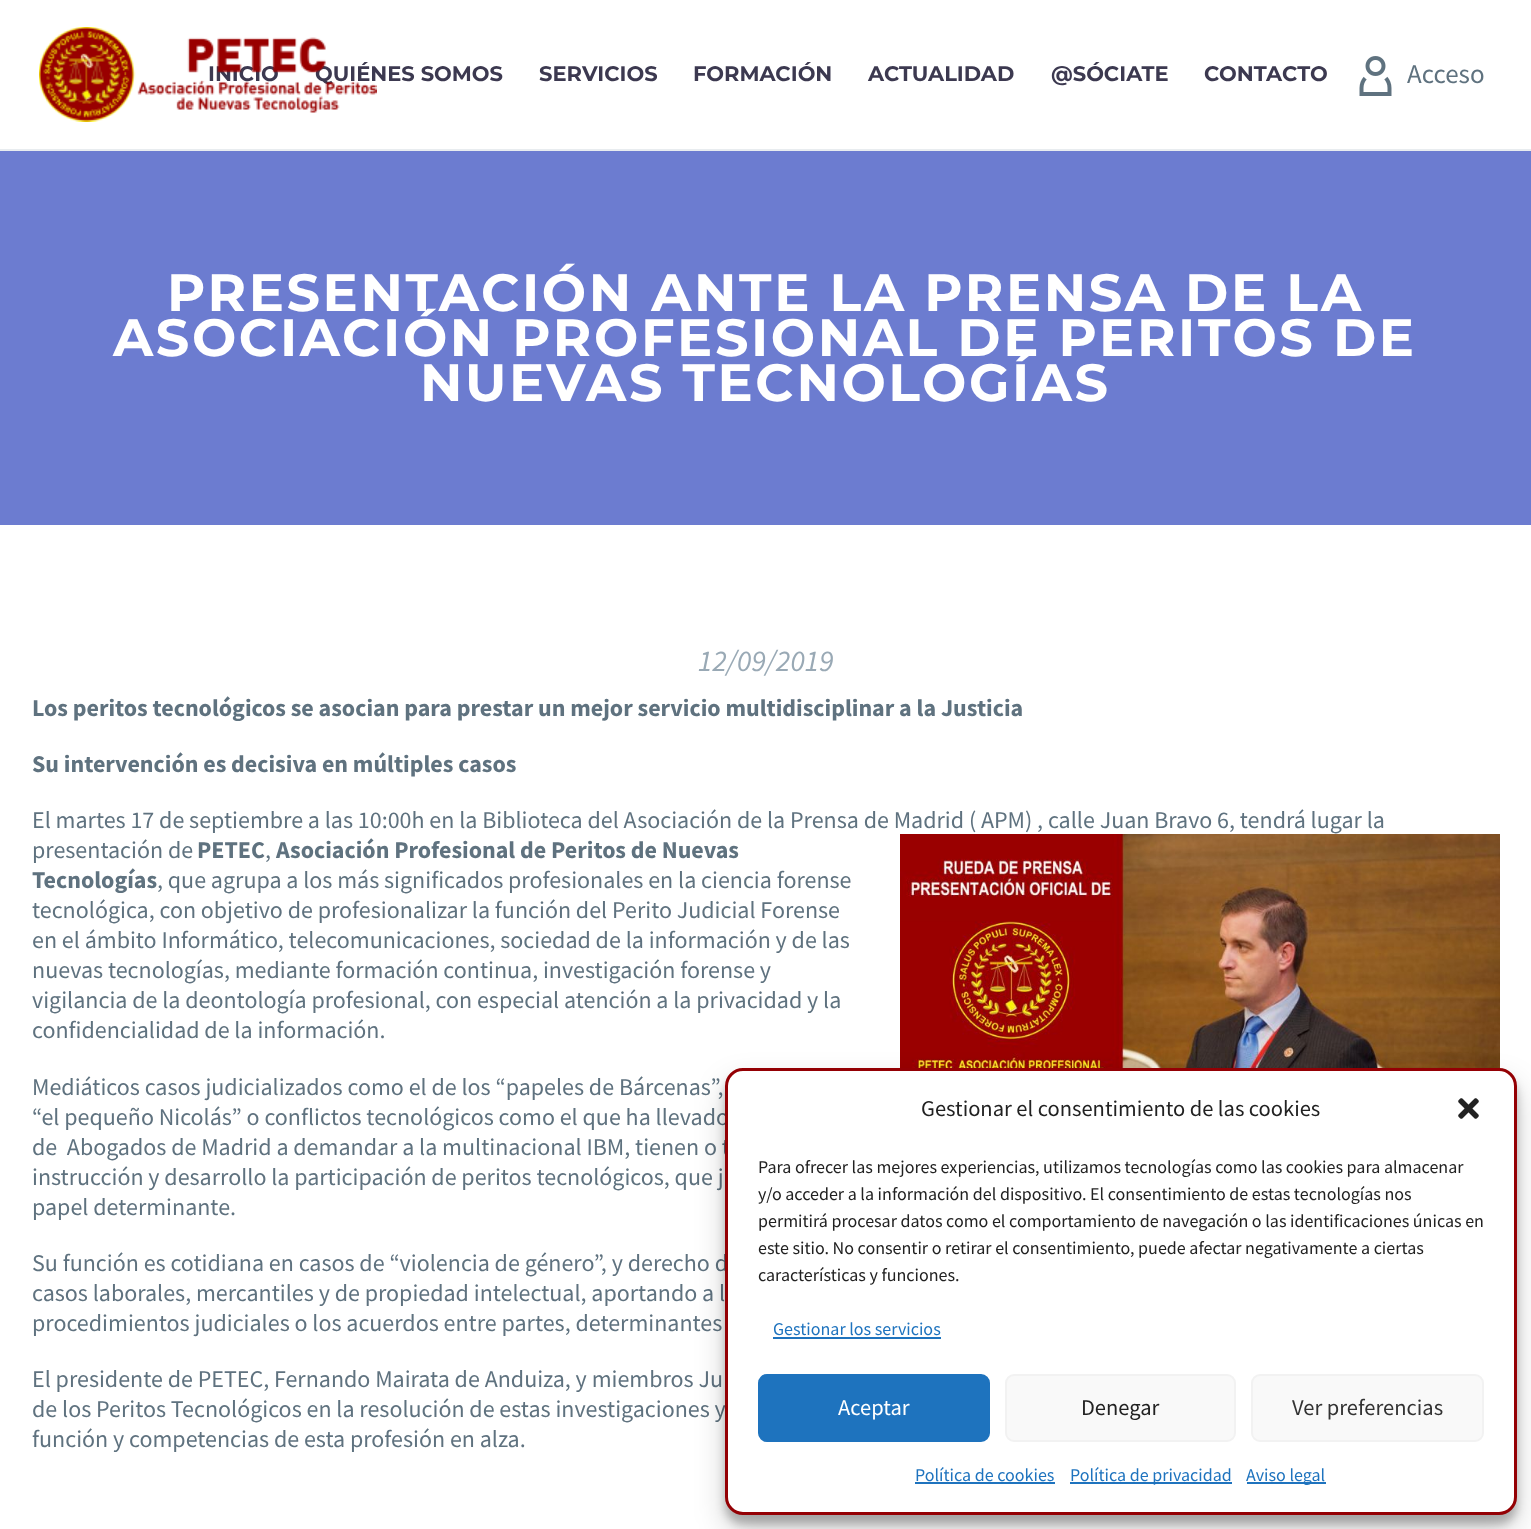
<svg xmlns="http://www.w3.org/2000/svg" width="1531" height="1529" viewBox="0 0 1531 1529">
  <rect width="100%" height="100%" fill="rgb(255,255,255)"/>
  <rect x="0" y="149" width="1531" height="2" fill="rgb(232,236,239)"/>
  <g font-family="Montserrat" font-size="21" font-weight="100" fill="rgb(60,57,80)">
    <text x="208" y="81">INICIO</text>
    <text x="315" y="81">QUIÉNES SOMOS</text>
  </g>
  <image x="39" y="27" width="338" height="95" href="pic1.png"/>
  <g font-family="Montserrat" font-size="21" font-weight="100" fill="rgb(60,57,80)">
    <text x="539" y="81">SERVICIOS</text>
    <text x="693" y="81">FORMACIÓN</text>
    <text x="868" y="81">ACTUALIDAD</text>
    <text x="1051" y="81">@SÓCIATE</text>
    <text x="1204" y="81">CONTACTO</text>
  </g>
  <image x="1359" y="56" width="33" height="40" href="pic2.png"/>
  <text x="1407" y="83" font-family="Source Sans Pro" font-size="27" fill="rgb(95,114,127)">Acceso</text>
  <rect x="0" y="151" width="1531" height="374" fill="rgb(108,124,208)"/>
  <g font-family="Montserrat" font-size="52.5" font-weight="100" letter-spacing="2.6" fill="rgb(255,255,255)">
    <text x="167" y="311">PRESENTACIÓN ANTE LA PRENSA DE LA</text>
    <text x="113" y="356">ASOCIACIÓN PROFESIONAL DE PERITOS DE</text>
    <text x="420" y="401">NUEVAS TECNOLOGÍAS</text>
  </g>
  <text x="698" y="671" font-family="Source Sans Pro" font-size="30" font-style="italic" fill="rgb(153,169,181)">12/09/2019</text>
  <g font-family="Source Sans Pro" font-size="24" font-weight="bold" fill="rgb(95,114,127)">
    <text x="32" y="716">Los peritos tecnológicos se asocian para prestar un mejor servicio multidisciplinar a la Justicia</text>
    <text x="32" y="772">Su intervención es decisiva en múltiples casos</text>
  </g>
  <g font-family="Source Sans Pro" font-size="24" fill="rgb(95,114,127)">
    <text>
      <tspan x="32" y="828">El martes 17 de septiembre a las 10:00h en la Biblioteca del Asociación de la Prensa de Madrid ( APM) , calle Juan Bravo 6, tendrá lugar la</tspan>
      <tspan x="32" y="858">presentación de</tspan>
    </text>
  </g>
  <text x="197" y="858" font-family="Source Sans Pro" font-size="24" font-weight="bold" fill="rgb(95,114,127)">PETEC</text>
  <text x="265" y="858" font-family="Source Sans Pro" font-size="24" fill="rgb(95,114,127)">,</text>
  <text x="276" y="858" font-family="Source Sans Pro" font-size="24" font-weight="bold" fill="rgb(95,114,127)">Asociación Profesional de Peritos de Nuevas</text>
  <image x="900" y="834" width="600" height="235" href="pic3.png"/>
  <text x="32" y="888" font-family="Source Sans Pro" font-size="24" font-weight="bold" fill="rgb(95,114,127)">Tecnologías</text>
  <g font-family="Source Sans Pro" font-size="24" fill="rgb(95,114,127)">
    <text x="157" y="888">, que agrupa a los más significados profesionales en la ciencia forense</text>
    <text>
      <tspan x="32" y="918">tecnológica, con objetivo de profesionalizar la función del Perito Judicial Forense</tspan>
      <tspan x="32" y="948">en el ámbito Informático, telecomunicaciones, sociedad de la información y de las</tspan>
      <tspan x="32" y="978">nuevas tecnologías, mediante formación continua, investigación forense y</tspan>
      <tspan x="32" y="1008">vigilancia de la deontología profesional, con especial atención a la privacidad y la</tspan>
      <tspan x="32" y="1038">confidencialidad de la información.</tspan>
    </text>
    <text xml:space="preserve"><tspan x="32" y="1095">Mediáticos casos judicializados como el de los “papeles de Bárcenas”,</tspan><tspan x="32" y="1125">“el pequeño Nicolás” o conflictos tecnológicos como el que ha llevado</tspan><tspan x="32" y="1155">de  Abogados de Madrid a demandar a la multinacional IBM, tienen o t</tspan><tspan x="32" y="1185">instrucción y desarrollo la participación de peritos tecnológicos, que j</tspan><tspan x="32" y="1215">papel determinante.</tspan></text>
    <text>
      <tspan x="32" y="1271">Su función es cotidiana en casos de “violencia de género”, y derecho d</tspan>
      <tspan x="32" y="1301">casos laborales, mercantiles y de propiedad intelectual, aportando a l</tspan>
      <tspan x="32" y="1331">procedimientos judiciales o los acuerdos entre partes, determinantes</tspan>
    </text>
    <text>
      <tspan x="32" y="1387">El presidente de PETEC, Fernando Mairata de Anduiza, y miembros Ju</tspan>
      <tspan x="32" y="1417">de los Peritos Tecnológicos en la resolución de estas investigaciones y</tspan>
      <tspan x="32" y="1447">función y competencias de esta profesión en alza.</tspan>
    </text>
  </g>
  <rect x="725" y="1077" width="792" height="447" rx="18" fill="rgba(0,0,0,0.23)" filter="blur(4.5px)"/>
  <rect x="725" y="1083" width="792" height="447" rx="18" fill="rgba(0,0,0,0.19)" filter="blur(15px)"/>
  <rect x="726.5" y="1069.5" width="789" height="444" rx="16.5" fill="rgb(255,255,255)" stroke="rgb(148,0,4)" stroke-width="3"/>
  <text x="921" y="1116" font-family="Source Sans Pro" font-size="22.5" fill="rgb(34,34,34)">Gestionar el consentimiento de las cookies</text>
  <image x="1458" y="1098" width="21" height="21" href="pic4.png"/>
  <g font-family="Source Sans Pro" font-size="18" fill="rgb(34,34,34)">
    <text>
      <tspan x="758" y="1173">Para ofrecer las mejores experiencias, utilizamos tecnologías como las cookies para almacenar</tspan>
      <tspan x="758" y="1200">y/o acceder a la información del dispositivo. El consentimiento de estas tecnologías nos</tspan>
      <tspan x="758" y="1227">permitirá procesar datos como el comportamiento de navegación o las identificaciones únicas en</tspan>
      <tspan x="758" y="1254">este sitio. No consentir o retirar el consentimiento, puede afectar negativamente a ciertas</tspan>
      <tspan x="758" y="1281">características y funciones.</tspan>
    </text>
  </g>
  <text x="773" y="1335" font-family="Source Sans Pro" font-size="18" fill="rgb(30,115,190)">Gestionar los servicios</text>
  <rect x="773" y="1337" width="168" height="2" fill="rgb(30,115,190)"/>
  <rect x="759" y="1375" width="230" height="66" rx="8" fill="rgb(30,115,190)" stroke="rgb(30,115,190)" stroke-width="2"/>
  <text x="838" y="1415" font-family="Source Sans Pro" font-size="22.5" fill="rgb(255,255,255)">Aceptar</text>
  <rect x="1006" y="1375" width="229" height="66" rx="8" fill="rgb(249,249,249)" stroke="rgb(242,242,242)" stroke-width="2"/>
  <text x="1081" y="1415" font-family="Source Sans Pro" font-size="22.5" fill="rgb(34,34,34)">Denegar</text>
  <rect x="1252" y="1375" width="231" height="66" rx="8" fill="rgb(249,249,249)" stroke="rgb(242,242,242)" stroke-width="2"/>
  <text x="1292" y="1415" font-family="Source Sans Pro" font-size="22.5" fill="rgb(51,51,51)">Ver preferencias</text>
  <text x="915" y="1481" font-family="Source Sans Pro" font-size="18" fill="rgb(30,115,190)">Política de cookies</text>
  <rect x="915" y="1482" width="140" height="2" fill="rgb(30,115,190)"/>
  <rect x="1070" y="1482" width="162" height="2" fill="rgb(30,115,190)"/>
  <text x="1070" y="1481" font-family="Source Sans Pro" font-size="18" fill="rgb(30,115,190)">Política de privacidad</text>
  <rect x="1247" y="1482" width="79" height="2" fill="rgb(30,115,190)"/>
  <text x="1246" y="1481" font-family="Source Sans Pro" font-size="18" fill="rgb(30,115,190)">Aviso legal</text>
</svg>
